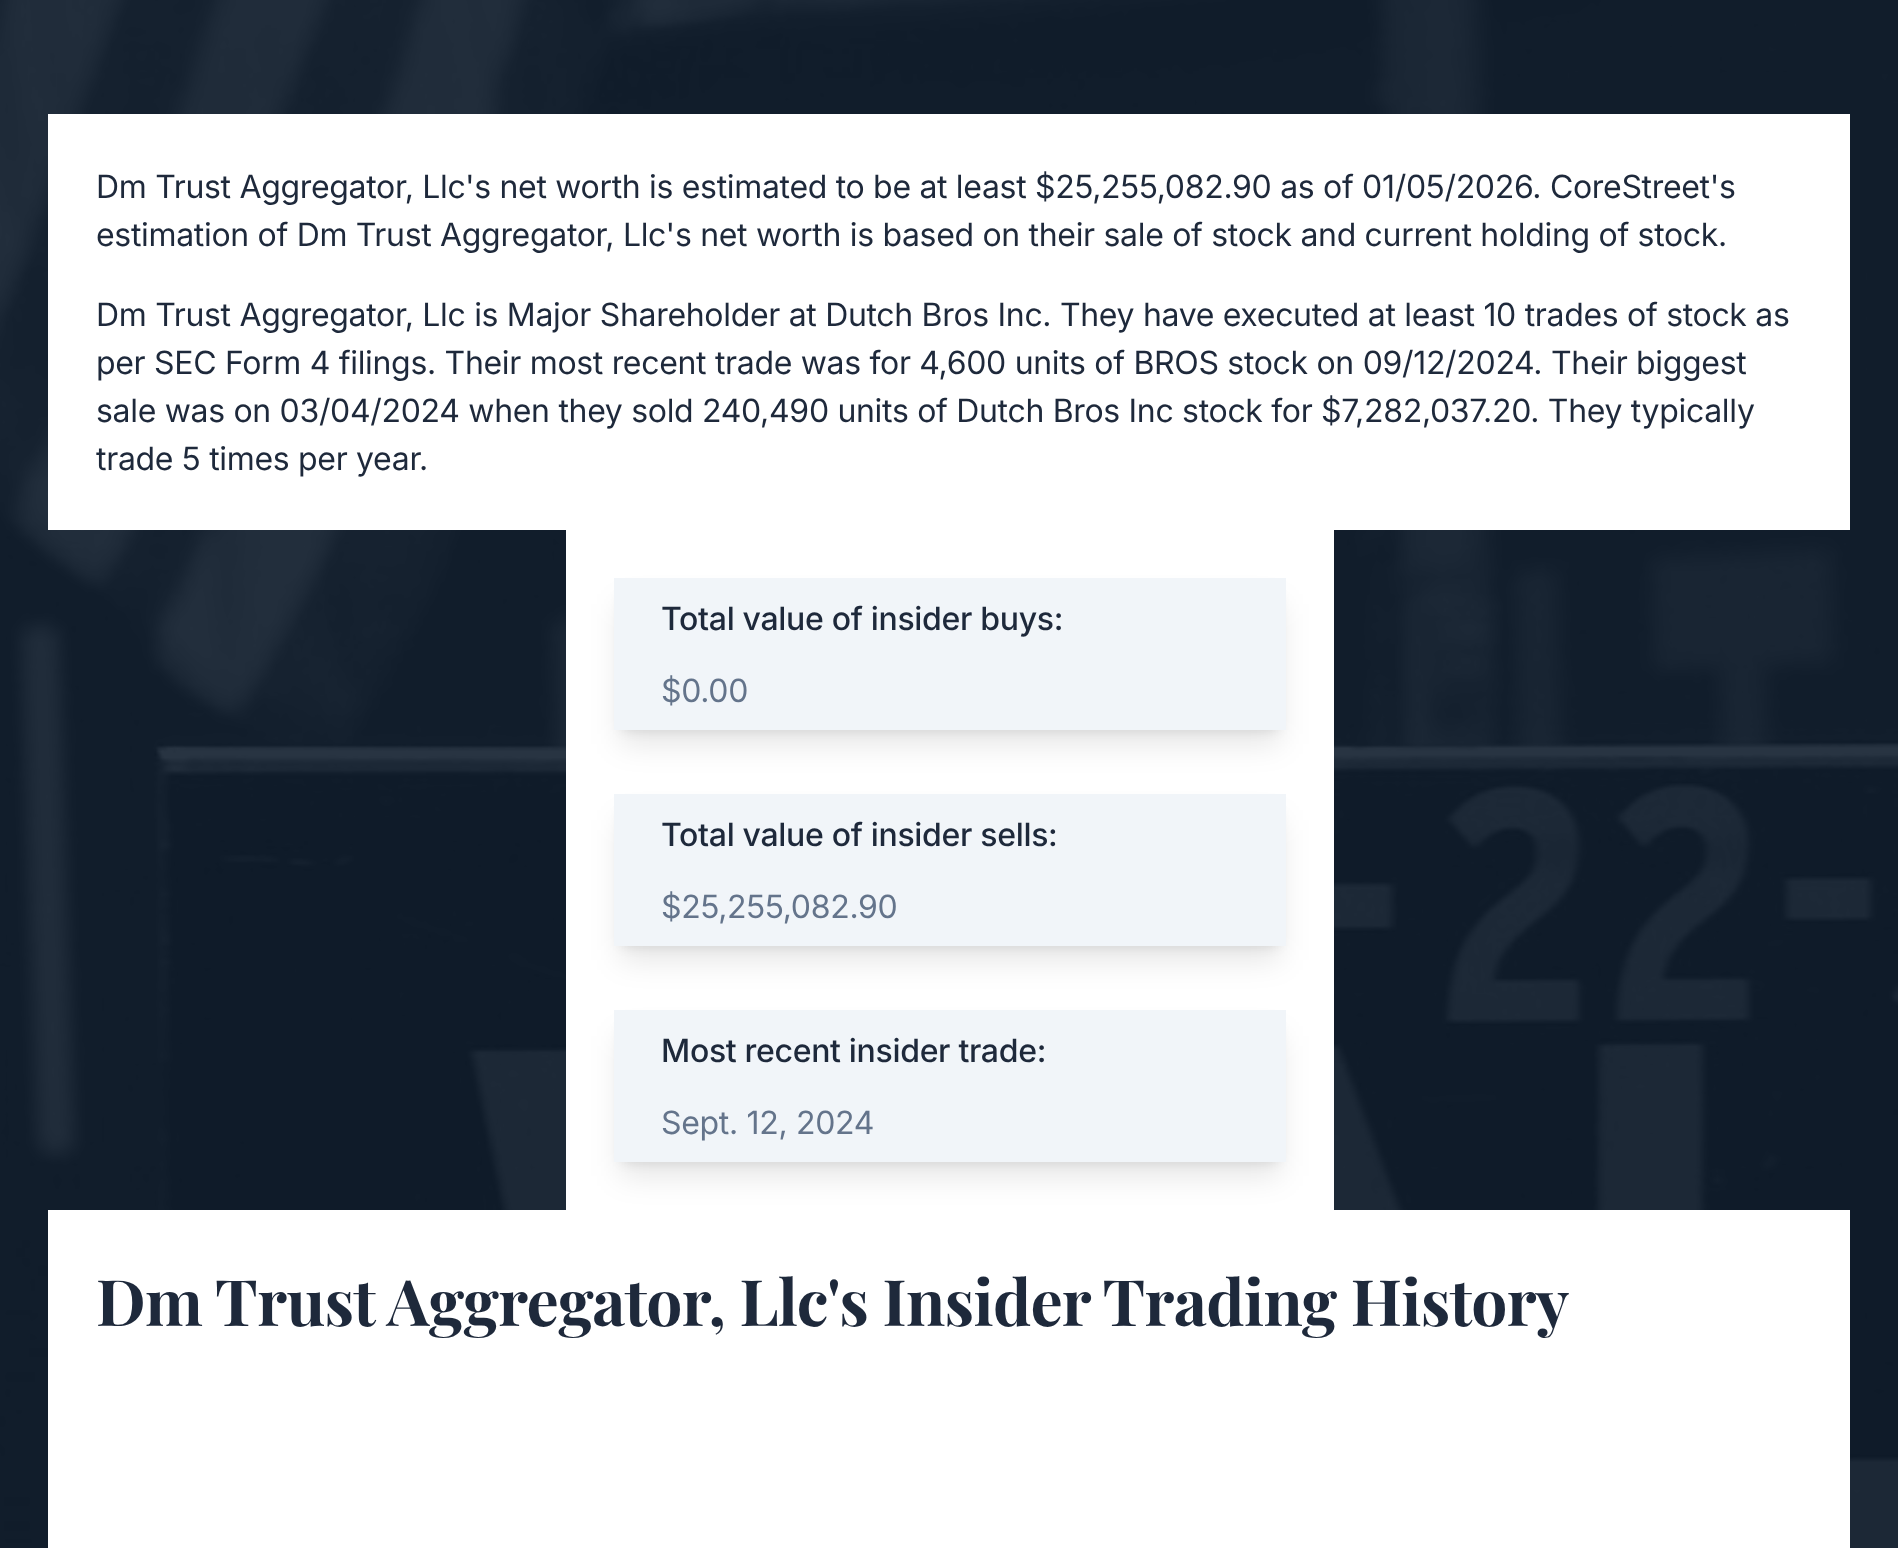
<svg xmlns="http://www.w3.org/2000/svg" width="1898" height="1548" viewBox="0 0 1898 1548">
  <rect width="100%" height="100%" fill="rgb(16,29,45)"/>
  <image x="0" y="0" width="1898" height="1548" href="pic1.png"/>
  <rect x="48" y="114" width="1802" height="416" fill="rgb(255,255,255)"/>
  <g font-family="Inter" font-size="32" letter-spacing="-0.32" fill="rgb(30,41,59)">
    <text>
      <tspan x="96" y="198">Dm Trust Aggregator, Llc's net worth is estimated to be at least $25,255,082.90 as of 01/05/2026. CoreStreet's</tspan>
      <tspan x="96" y="246">estimation of Dm Trust Aggregator, Llc's net worth is based on their sale of stock and current holding of stock.</tspan>
    </text>
    <text>
      <tspan x="96" y="326">Dm Trust Aggregator, Llc is Major Shareholder at Dutch Bros Inc. They have executed at least 10 trades of stock as</tspan>
      <tspan x="96" y="374">per SEC Form 4 filings. Their most recent trade was for 4,600 units of BROS stock on 09/12/2024. Their biggest</tspan>
      <tspan x="96" y="422">sale was on 03/04/2024 when they sold 240,490 units of Dutch Bros Inc stock for $7,282,037.20. They typically</tspan>
      <tspan x="96" y="470">trade 5 times per year.</tspan>
    </text>
  </g>
  <rect x="566" y="530" width="768" height="680" fill="rgb(255,255,255)"/>
  <rect x="622" y="594" width="656" height="136" fill="rgba(0,0,0,0.1)" filter="blur(6px)"/>
  <rect x="620" y="604" width="660" height="140" fill="rgba(0,0,0,0.1)" filter="blur(15px)"/>
  <rect x="614" y="578" width="672" height="152" fill="rgb(241,245,249)"/>
  <text x="661" y="630" font-family="Inter" font-size="32" font-weight="500" letter-spacing="-0.32" fill="rgb(30,41,59)">Total value of insider buys:</text>
  <text x="661" y="702" font-family="Inter" font-size="32" letter-spacing="-0.32" fill="rgb(100,116,139)">$0.00</text>
  <rect x="622" y="810" width="656" height="136" fill="rgba(0,0,0,0.1)" filter="blur(6px)"/>
  <rect x="620" y="820" width="660" height="140" fill="rgba(0,0,0,0.1)" filter="blur(15px)"/>
  <rect x="614" y="794" width="672" height="152" fill="rgb(241,245,249)"/>
  <text x="661" y="846" font-family="Inter" font-size="32" font-weight="500" letter-spacing="-0.32" fill="rgb(30,41,59)">Total value of insider sells:</text>
  <text x="661" y="918" font-family="Inter" font-size="32" letter-spacing="-0.32" fill="rgb(100,116,139)">$25,255,082.90</text>
  <rect x="622" y="1026" width="656" height="136" fill="rgba(0,0,0,0.1)" filter="blur(6px)"/>
  <rect x="48" y="1210" width="1802" height="338" fill="rgb(255,255,255)"/>
  <rect x="620" y="1036" width="660" height="140" fill="rgba(0,0,0,0.1)" filter="blur(15px)"/>
  <rect x="614" y="1010" width="672" height="152" fill="rgb(241,245,249)"/>
  <text x="661" y="1062" font-family="Inter" font-size="32" font-weight="500" letter-spacing="-0.32" fill="rgb(30,41,59)">Most recent insider trade:</text>
  <text x="661" y="1134" font-family="Inter" font-size="32" letter-spacing="-0.32" fill="rgb(100,116,139)">Sept. 12, 2024</text>
  <text x="96" y="1326" font-family="Playfair Display" font-size="64" font-weight="bold" letter-spacing="-0.65" fill="rgb(30,41,59)">Dm Trust Aggregator, Llc's Insider Trading History</text>
</svg>
